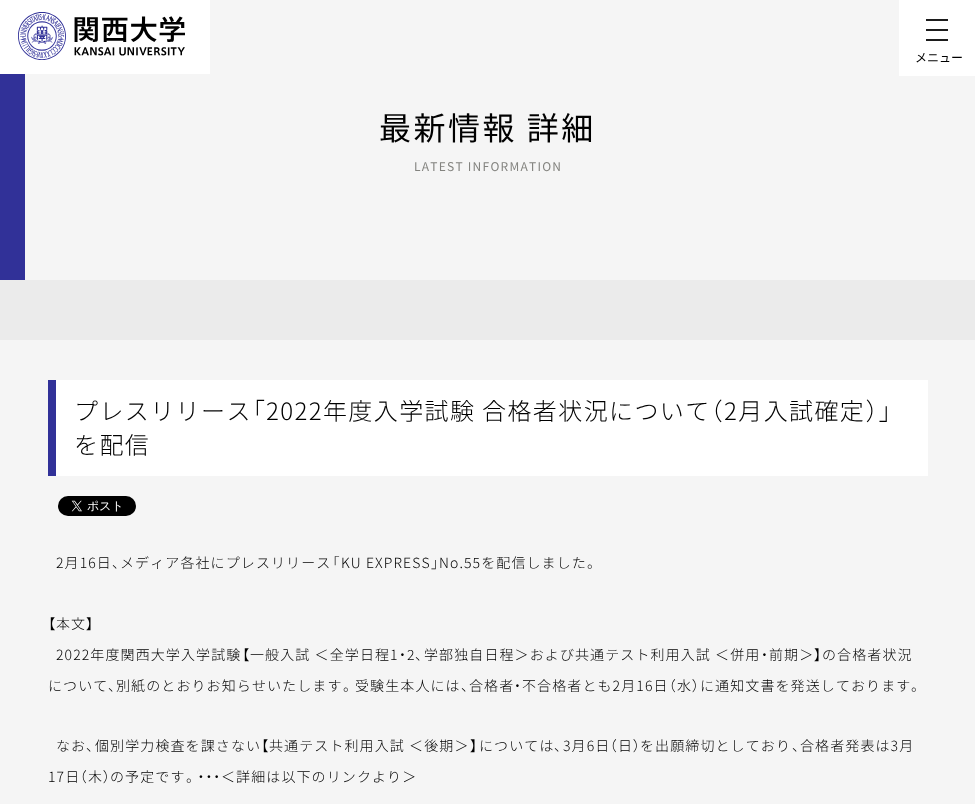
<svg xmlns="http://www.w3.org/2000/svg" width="975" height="804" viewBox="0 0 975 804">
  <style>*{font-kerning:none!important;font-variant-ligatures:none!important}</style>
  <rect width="100%" height="100%" fill="rgb(245,245,245)"/>
  <rect x="0" y="0" width="210" height="74" fill="rgb(255,255,255)"/>
  <image x="18" y="12" width="167" height="48" href="pic1.png"/>
  <rect x="899" y="0" width="76" height="76" fill="rgb(255,255,255)"/>
  <rect x="926" y="19" width="22" height="2" fill="rgb(28,28,28)"/>
  <rect x="926" y="29" width="22" height="2" fill="rgb(28,28,28)"/>
  <rect x="926" y="39" width="22" height="2" fill="rgb(28,28,28)"/>
  <text x="915" y="62" font-family="Noto Sans JP" font-size="12" fill="rgb(0,0,0)">メニュー</text>
  <rect x="0" y="74" width="25" height="206" fill="rgb(49,49,152)"/>
  <text x="379" y="140" font-family="Noto Sans JP" font-size="32" letter-spacing="2.5" fill="rgb(0,0,0)">最新情報 詳細</text>
  <text x="414" y="171" font-family="Noto Sans JP" font-size="12" letter-spacing="1.25" fill="rgb(131,131,127)">LATEST INFORMATION</text>
  <rect x="0" y="280" width="975" height="60" fill="rgb(235,235,235)"/>
  <rect x="56" y="380" width="872" height="96" fill="rgb(255,255,255)"/>
  <rect x="48" y="380" width="8" height="96" fill="rgb(49,49,152)"/>
  <text x="74" y="420" font-family="Noto Sans JP" font-size="24" font-weight="300" letter-spacing="1.4" fill="rgb(0,0,0)">プレスリリース</text>
  <text x="252" y="420" font-family="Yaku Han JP" font-size="24" font-weight="300" letter-spacing="1.4" fill="rgb(0,0,0)">「</text>
  <text x="266" y="420" font-family="Noto Sans JP" font-size="24" font-weight="300" letter-spacing="1.4" fill="rgb(0,0,0)">2022年度入学試験 合格者状況について</text>
  <text x="711" y="420" font-family="Yaku Han JP" font-size="24" font-weight="300" letter-spacing="1.4" fill="rgb(0,0,0)">（</text>
  <text x="724" y="420" font-family="Noto Sans JP" font-size="24" font-weight="300" letter-spacing="1.4" fill="rgb(0,0,0)">2月入試確定</text>
  <text x="866" y="420" font-family="Yaku Han JP" font-size="24" font-weight="300" letter-spacing="1.4" fill="rgb(0,0,0)">）」</text>
  <text x="74" y="454" font-family="Noto Sans JP" font-size="24" font-weight="300" letter-spacing="1.4" fill="rgb(0,0,0)">を配信</text>
  <image x="58" y="496" width="78" height="20" href="pic2.png"/>
  <text x="56" y="568" font-family="Noto Sans JP" font-size="14" font-weight="300" letter-spacing="1.1" fill="rgb(0,0,0)">2月16日</text>
  <text x="112" y="568" font-family="Yaku Han JP" font-size="14" font-weight="300" letter-spacing="1.1" fill="rgb(0,0,0)">、</text>
  <text x="120" y="568" font-family="Noto Sans JP" font-size="14" font-weight="300" letter-spacing="1.1" fill="rgb(0,0,0)">メディア各社にプレスリリース</text>
  <text x="332" y="568" font-family="Yaku Han JP" font-size="14" font-weight="300" letter-spacing="1.1" fill="rgb(0,0,0)">「</text>
  <text x="341" y="568" font-family="Noto Sans JP" font-size="14" font-weight="300" letter-spacing="1.1" fill="rgb(0,0,0)">KU EXPRESS</text>
  <text x="431" y="568" font-family="Yaku Han JP" font-size="14" font-weight="300" letter-spacing="1.1" fill="rgb(0,0,0)">」</text>
  <text x="439" y="568" font-family="Noto Sans JP" font-size="14" font-weight="300" letter-spacing="1.1" fill="rgb(0,0,0)">No.55を配信しました</text>
  <g font-family="Yaku Han JP" font-size="14" font-weight="300" letter-spacing="1.1" fill="rgb(0,0,0)">
    <text x="587" y="568">。</text>
    <text x="48" y="629">【</text>
  </g>
  <text x="56" y="629" font-family="Noto Sans JP" font-size="14" font-weight="300" letter-spacing="1.1" fill="rgb(0,0,0)">本文</text>
  <text x="86" y="629" font-family="Yaku Han JP" font-size="14" font-weight="300" letter-spacing="1.1" fill="rgb(0,0,0)">】</text>
  <text x="56" y="660" font-family="Noto Sans JP" font-size="14" font-weight="300" letter-spacing="1.1" fill="rgb(0,0,0)">2022年度関西大学入学試験</text>
  <text x="242" y="660" font-family="Yaku Han JP" font-size="14" font-weight="300" letter-spacing="1.1" fill="rgb(0,0,0)">【</text>
  <text x="250" y="660" font-family="Noto Sans JP" font-size="14" font-weight="300" letter-spacing="1.1" fill="rgb(0,0,0)">一般入試 ＜全学日程1</text>
  <text x="399" y="660" font-family="Yaku Han JP" font-size="14" font-weight="300" letter-spacing="1.1" fill="rgb(0,0,0)">・</text>
  <g font-family="Noto Sans JP" font-size="14" font-weight="300" letter-spacing="1.1" fill="rgb(0,0,0)">
    <text x="407" y="660">2</text>
    <text x="424" y="660">学部独自日程＞および共通テスト利用入試 ＜併用</text>
  </g>
  <text x="761" y="660" font-family="Yaku Han JP" font-size="14" font-weight="300" letter-spacing="1.1" fill="rgb(0,0,0)">・</text>
  <text x="769" y="660" font-family="Noto Sans JP" font-size="14" font-weight="300" letter-spacing="1.1" fill="rgb(0,0,0)">前期＞</text>
  <text x="814" y="660" font-family="Yaku Han JP" font-size="14" font-weight="300" letter-spacing="1.1" fill="rgb(0,0,0)">】</text>
  <text x="822" y="660" font-family="Noto Sans JP" font-size="14" font-weight="300" letter-spacing="1.1" fill="rgb(0,0,0)">の合格者状況</text>
  <text x="415" y="660" font-family="Yaku Han JP" font-size="14" font-weight="300" letter-spacing="1.1" fill="rgb(0,0,0)">、</text>
  <g font-family="Noto Sans JP" font-size="14" font-weight="300" letter-spacing="1.1" fill="rgb(0,0,0)">
    <text x="48" y="691">について</text>
    <text x="116" y="691">別紙のとおりお知らせいたします</text>
    <text x="355" y="691">受験生本人には</text>
    <text x="469" y="691">合格者</text>
  </g>
  <text x="514" y="691" font-family="Yaku Han JP" font-size="14" font-weight="300" letter-spacing="1.1" fill="rgb(0,0,0)">・</text>
  <text x="522" y="691" font-family="Noto Sans JP" font-size="14" font-weight="300" letter-spacing="1.1" fill="rgb(0,0,0)">不合格者とも2月16日</text>
  <text x="669" y="691" font-family="Yaku Han JP" font-size="14" font-weight="300" letter-spacing="1.1" fill="rgb(0,0,0)">（</text>
  <text x="677" y="691" font-family="Noto Sans JP" font-size="14" font-weight="300" letter-spacing="1.1" fill="rgb(0,0,0)">水</text>
  <text x="692" y="691" font-family="Yaku Han JP" font-size="14" font-weight="300" letter-spacing="1.1" fill="rgb(0,0,0)">）</text>
  <text x="700" y="691" font-family="Noto Sans JP" font-size="14" font-weight="300" letter-spacing="1.1" fill="rgb(0,0,0)">に通知文書を発送しております</text>
  <g font-family="Yaku Han JP" font-size="14" font-weight="300" letter-spacing="1.1" fill="rgb(0,0,0)">
    <text x="108" y="691">、</text>
    <text x="343" y="691">。</text>
    <text x="461" y="691">、</text>
    <text x="911" y="691">。</text>
  </g>
  <text x="56" y="751" font-family="Noto Sans JP" font-size="14" font-weight="300" letter-spacing="1.1" fill="rgb(0,0,0)">なお</text>
  <text x="86" y="751" font-family="Yaku Han JP" font-size="14" font-weight="300" letter-spacing="1.1" fill="rgb(0,0,0)">、</text>
  <text x="95" y="751" font-family="Noto Sans JP" font-size="14" font-weight="300" letter-spacing="1.1" fill="rgb(0,0,0)">個別学力検査を課さない</text>
  <text x="261" y="751" font-family="Yaku Han JP" font-size="14" font-weight="300" letter-spacing="1.1" fill="rgb(0,0,0)">【</text>
  <text x="269" y="751" font-family="Noto Sans JP" font-size="14" font-weight="300" letter-spacing="1.1" fill="rgb(0,0,0)">共通テスト利用入試 ＜後期＞</text>
  <text x="470" y="751" font-family="Yaku Han JP" font-size="14" font-weight="300" letter-spacing="1.1" fill="rgb(0,0,0)">】</text>
  <text x="479" y="751" font-family="Noto Sans JP" font-size="14" font-weight="300" letter-spacing="1.1" fill="rgb(0,0,0)">については</text>
  <text x="554" y="751" font-family="Yaku Han JP" font-size="14" font-weight="300" letter-spacing="1.1" fill="rgb(0,0,0)">、</text>
  <text x="563" y="751" font-family="Noto Sans JP" font-size="14" font-weight="300" letter-spacing="1.1" fill="rgb(0,0,0)">3月6日</text>
  <text x="610" y="751" font-family="Yaku Han JP" font-size="14" font-weight="300" letter-spacing="1.1" fill="rgb(0,0,0)">（</text>
  <text x="618" y="751" font-family="Noto Sans JP" font-size="14" font-weight="300" letter-spacing="1.1" fill="rgb(0,0,0)">日</text>
  <text x="633" y="751" font-family="Yaku Han JP" font-size="14" font-weight="300" letter-spacing="1.1" fill="rgb(0,0,0)">）</text>
  <text x="640" y="751" font-family="Noto Sans JP" font-size="14" font-weight="300" letter-spacing="1.1" fill="rgb(0,0,0)">を出願締切としており</text>
  <text x="792" y="751" font-family="Yaku Han JP" font-size="14" font-weight="300" letter-spacing="1.1" fill="rgb(0,0,0)">、</text>
  <g font-family="Noto Sans JP" font-size="14" font-weight="300" letter-spacing="1.1" fill="rgb(0,0,0)">
    <text x="800" y="751">合格者発表は3月</text>
    <text x="48" y="782">17日</text>
  </g>
  <text x="80" y="782" font-family="Yaku Han JP" font-size="14" font-weight="300" letter-spacing="1.1" fill="rgb(0,0,0)">（</text>
  <text x="88" y="782" font-family="Noto Sans JP" font-size="14" font-weight="300" letter-spacing="1.1" fill="rgb(0,0,0)">木</text>
  <text x="103" y="782" font-family="Yaku Han JP" font-size="14" font-weight="300" letter-spacing="1.1" fill="rgb(0,0,0)">）</text>
  <text x="110" y="782" font-family="Noto Sans JP" font-size="14" font-weight="300" letter-spacing="1.1" fill="rgb(0,0,0)">の予定です</text>
  <text x="186" y="782" font-family="Yaku Han JP" font-size="14" font-weight="300" letter-spacing="1.1" fill="rgb(0,0,0)">。・・・</text>
  <text x="221" y="782" font-family="Noto Sans JP" font-size="14" font-weight="300" letter-spacing="1.1" fill="rgb(0,0,0)">＜詳細は以下のリンクより＞</text>
</svg>
